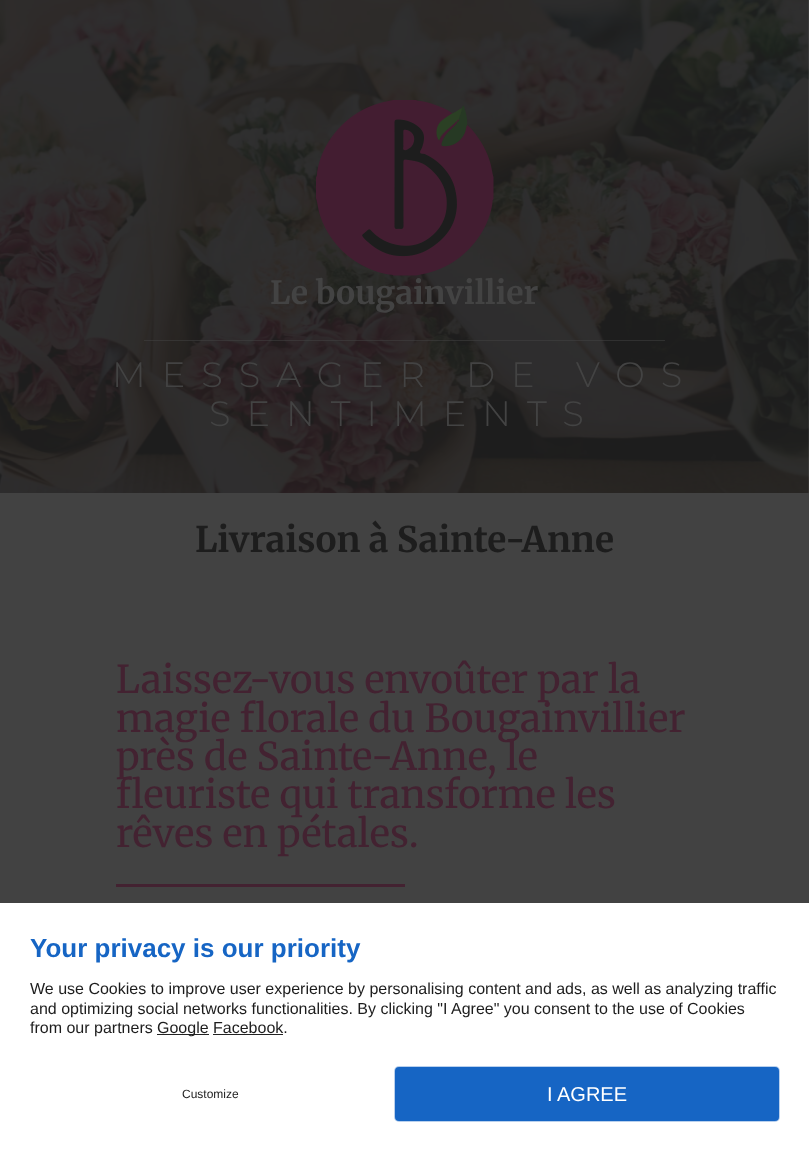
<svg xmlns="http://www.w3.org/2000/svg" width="809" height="1151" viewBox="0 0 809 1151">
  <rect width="100%" height="100%" fill="rgb(255,255,255)"/>
  <image x="0" y="0" width="809" height="493" href="pic1.png"/>
  <image x="316" y="100" width="178" height="176" href="pic2.png"/>
  <text x="270" y="304" font-family="Merriweather" font-size="32" font-weight="bold" fill="rgb(67,67,67)">Le bougainvillier</text>
  <rect x="144" y="340" width="521" height="1" fill="rgba(67,67,67,0.5)"/>
  <g font-family="Montserrat" font-size="35.25" font-weight="300" letter-spacing="16" fill="rgb(67,67,67)">
    <text x="112" y="387">MESSAGER DE VOS</text>
    <text x="209" y="426">SENTIMENTS</text>
  </g>
  <rect x="0" y="493" width="809" height="410" fill="rgb(66,66,66)"/>
  <text x="195" y="552" font-family="Merriweather" font-size="35.25" font-weight="bold" fill="rgb(29,29,29)">Livraison à Sainte-Anne</text>
  <g font-family="Merriweather" font-size="38.4" fill="rgb(67,34,49)">
    <text>
      <tspan x="116" y="693">Laissez-vous envoûter par la</tspan>
      <tspan x="116" y="732">magie florale du Bougainvillier</tspan>
      <tspan x="116" y="770">près de Sainte-Anne, le</tspan>
      <tspan x="116" y="808">fleuriste qui transforme les</tspan>
      <tspan x="116" y="847">rêves en pétales.</tspan>
    </text>
  </g>
  <rect x="116" y="884" width="289" height="3" fill="rgb(67,34,49)"/>
  <text x="30" y="957" font-family="Liberation Sans" font-size="26" font-weight="bold" fill="rgb(22,101,196)">Your privacy is our priority</text>
  <g font-family="Liberation Sans" font-size="16" fill="rgb(29,29,29)">
    <text>
      <tspan x="30" y="994">We use Cookies to improve user experience by personalising content and ads, as well as analyzing traffic</tspan>
      <tspan x="30" y="1014">and optimizing social networks functionalities. By clicking "I Agree" you consent to the use of Cookies</tspan>
      <tspan x="30" y="1033">from our partners</tspan>
    </text>
  </g>
  <rect x="157" y="1034" width="52" height="1" fill="rgb(34,34,34)"/>
  <text x="157" y="1033" font-family="Liberation Sans" font-size="16" fill="rgb(29,29,29)">Google Facebook.</text>
  <rect x="213" y="1034" width="70" height="1" fill="rgb(34,34,34)"/>
  <text x="182" y="1098" font-family="Liberation Sans" font-size="12" fill="rgb(29,29,29)">Customize</text>
  <rect x="394" y="1066" width="386" height="56" rx="5" fill="rgba(22,101,196,0.3)" filter="blur(0.5px)"/>
  <rect x="396" y="1068" width="382" height="52" rx="3" fill="rgb(22,101,196)" stroke="rgb(22,101,196)" stroke-width="2"/>
  <text x="547" y="1101" font-family="Liberation Sans" font-size="20" fill="rgb(255,255,255)">I AGREE</text>
</svg>
